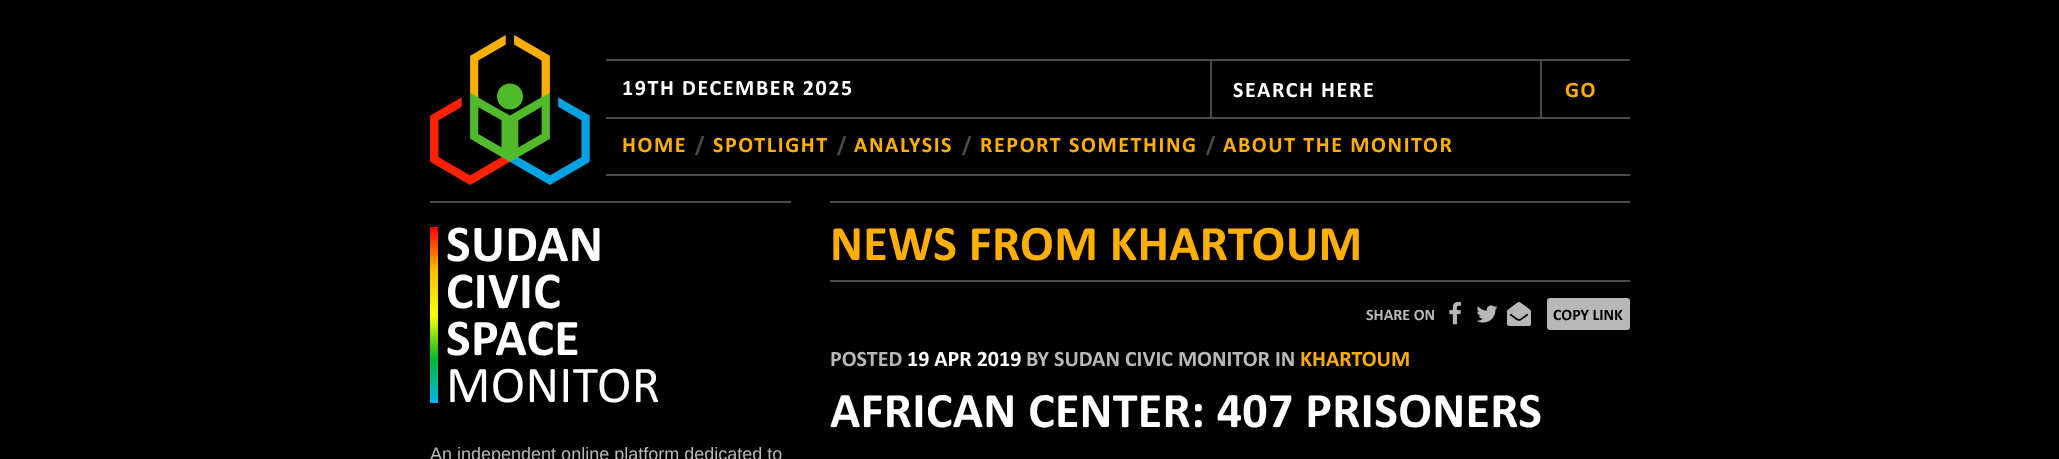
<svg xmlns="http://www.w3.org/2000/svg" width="2059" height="459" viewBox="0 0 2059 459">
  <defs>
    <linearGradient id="g1" gradientUnits="userSpaceOnUse" x1="434" y1="227" x2="434" y2="403"><stop offset="0" stop-color="rgb(255,0,0)"/><stop offset="0.25" stop-color="rgb(255,190,0)"/><stop offset="0.5" stop-color="rgb(254,255,0)"/><stop offset="0.75" stop-color="rgb(0,184,42)"/><stop offset="1" stop-color="rgb(0,178,246)"/></linearGradient>
  </defs>
  <rect width="100%" height="100%" fill="rgb(0,0,0)"/>
  <image x="430" y="35" width="160" height="150" href="pic1.png"/>
  <rect x="606" y="59" width="1024" height="2" fill="rgb(74,74,74)"/>
  <text x="622" y="95" font-family="Calibri" font-size="22" font-weight="bold" letter-spacing="1.6" fill="rgb(255,255,255)">19TH DECEMBER 2025</text>
  <rect x="1210" y="61" width="2" height="56" fill="rgb(74,74,74)"/>
  <text x="1233" y="97" font-family="Calibri" font-size="22" font-weight="bold" letter-spacing="1.6" fill="rgb(255,255,255)">SEARCH HERE</text>
  <rect x="1540" y="61" width="2" height="56" fill="rgb(74,74,74)"/>
  <text x="1565" y="97" font-family="Calibri" font-size="22" font-weight="bold" letter-spacing="1.6" fill="rgb(255,175,0)">GO</text>
  <rect x="606" y="117" width="1024" height="2" fill="rgb(74,74,74)"/>
  <text x="622" y="152" font-family="Calibri" font-size="22" font-weight="bold" letter-spacing="1.6" fill="rgb(255,175,0)">HOME</text>
  <text x="695" y="152" font-family="Calibri" font-size="22" font-weight="bold" letter-spacing="1.6" fill="rgb(74,74,74)">/</text>
  <text x="713" y="152" font-family="Calibri" font-size="22" font-weight="bold" letter-spacing="1.6" fill="rgb(255,175,0)">SPOTLIGHT</text>
  <text x="837" y="152" font-family="Calibri" font-size="22" font-weight="bold" letter-spacing="1.6" fill="rgb(74,74,74)">/</text>
  <text x="854" y="152" font-family="Calibri" font-size="22" font-weight="bold" letter-spacing="1.6" fill="rgb(255,175,0)">ANALYSIS</text>
  <text x="962" y="152" font-family="Calibri" font-size="22" font-weight="bold" letter-spacing="1.6" fill="rgb(74,74,74)">/</text>
  <text x="980" y="152" font-family="Calibri" font-size="22" font-weight="bold" letter-spacing="1.6" fill="rgb(255,175,0)">REPORT SOMETHING</text>
  <text x="1206" y="152" font-family="Calibri" font-size="22" font-weight="bold" letter-spacing="1.6" fill="rgb(74,74,74)">/</text>
  <text x="1223" y="152" font-family="Calibri" font-size="22" font-weight="bold" letter-spacing="1.6" fill="rgb(255,175,0)">ABOUT THE MONITOR</text>
  <rect x="606" y="174" width="1024" height="2" fill="rgb(74,74,74)"/>
  <rect x="430" y="201" width="361" height="2" fill="rgb(74,74,74)"/>
  <rect x="430" y="227" width="8" height="176" fill="url(#g1)"/>
  <g font-family="Calibri" font-size="52" font-weight="bold" letter-spacing="0.3" fill="rgb(255,255,255)">
    <text>
      <tspan x="446" y="261">SUDAN</tspan>
      <tspan x="446" y="308">CIVIC</tspan>
      <tspan x="446" y="355">SPACE</tspan>
    </text>
  </g>
  <text x="446" y="402" font-family="Calibri" font-size="52" letter-spacing="0.3" fill="rgb(255,255,255)">MONITOR</text>
  <text x="430" y="460" font-family="Liberation Sans" font-size="18" fill="rgb(183,184,183)">An independent online platform dedicated to</text>
  <rect x="830" y="201" width="800" height="2" fill="rgb(74,74,74)"/>
  <text x="830" y="260" font-family="Calibri" font-size="50" font-weight="bold" letter-spacing="0.3" fill="rgb(255,175,0)">NEWS FROM KHARTOUM</text>
  <rect x="830" y="280" width="800" height="2" fill="rgb(74,74,74)"/>
  <text x="1366" y="320" font-family="Calibri" font-size="16" font-weight="bold" fill="rgb(183,184,183)">SHARE ON</text>
  <image x="1449" y="302" width="12" height="23" href="pic2.png"/>
  <image x="1476" y="305" width="22" height="18" href="pic3.png"/>
  <image x="1507" y="302" width="24" height="24" href="pic4.png"/>
  <rect x="1547" y="298" width="83" height="32" rx="3" fill="rgb(183,184,183)"/>
  <text x="1553" y="320" font-family="Calibri" font-size="16" font-weight="bold" fill="rgb(0,0,0)">COPY LINK</text>
  <text x="830" y="366" font-family="Calibri" font-size="22" font-weight="bold" fill="rgb(183,184,183)">POSTED</text>
  <text x="907" y="366" font-family="Calibri" font-size="22" font-weight="bold" fill="rgb(255,255,255)">19 APR 2019</text>
  <text x="1026" y="366" font-family="Calibri" font-size="22" font-weight="bold" fill="rgb(183,184,183)">BY SUDAN CIVIC MONITOR IN</text>
  <text x="1300" y="366" font-family="Calibri" font-size="22" font-weight="bold" fill="rgb(255,175,0)">KHARTOUM</text>
  <text x="830" y="427" font-family="Calibri" font-size="50" font-weight="bold" letter-spacing="0.3" fill="rgb(255,255,255)">AFRICAN CENTER: 407 PRISONERS</text>
</svg>
